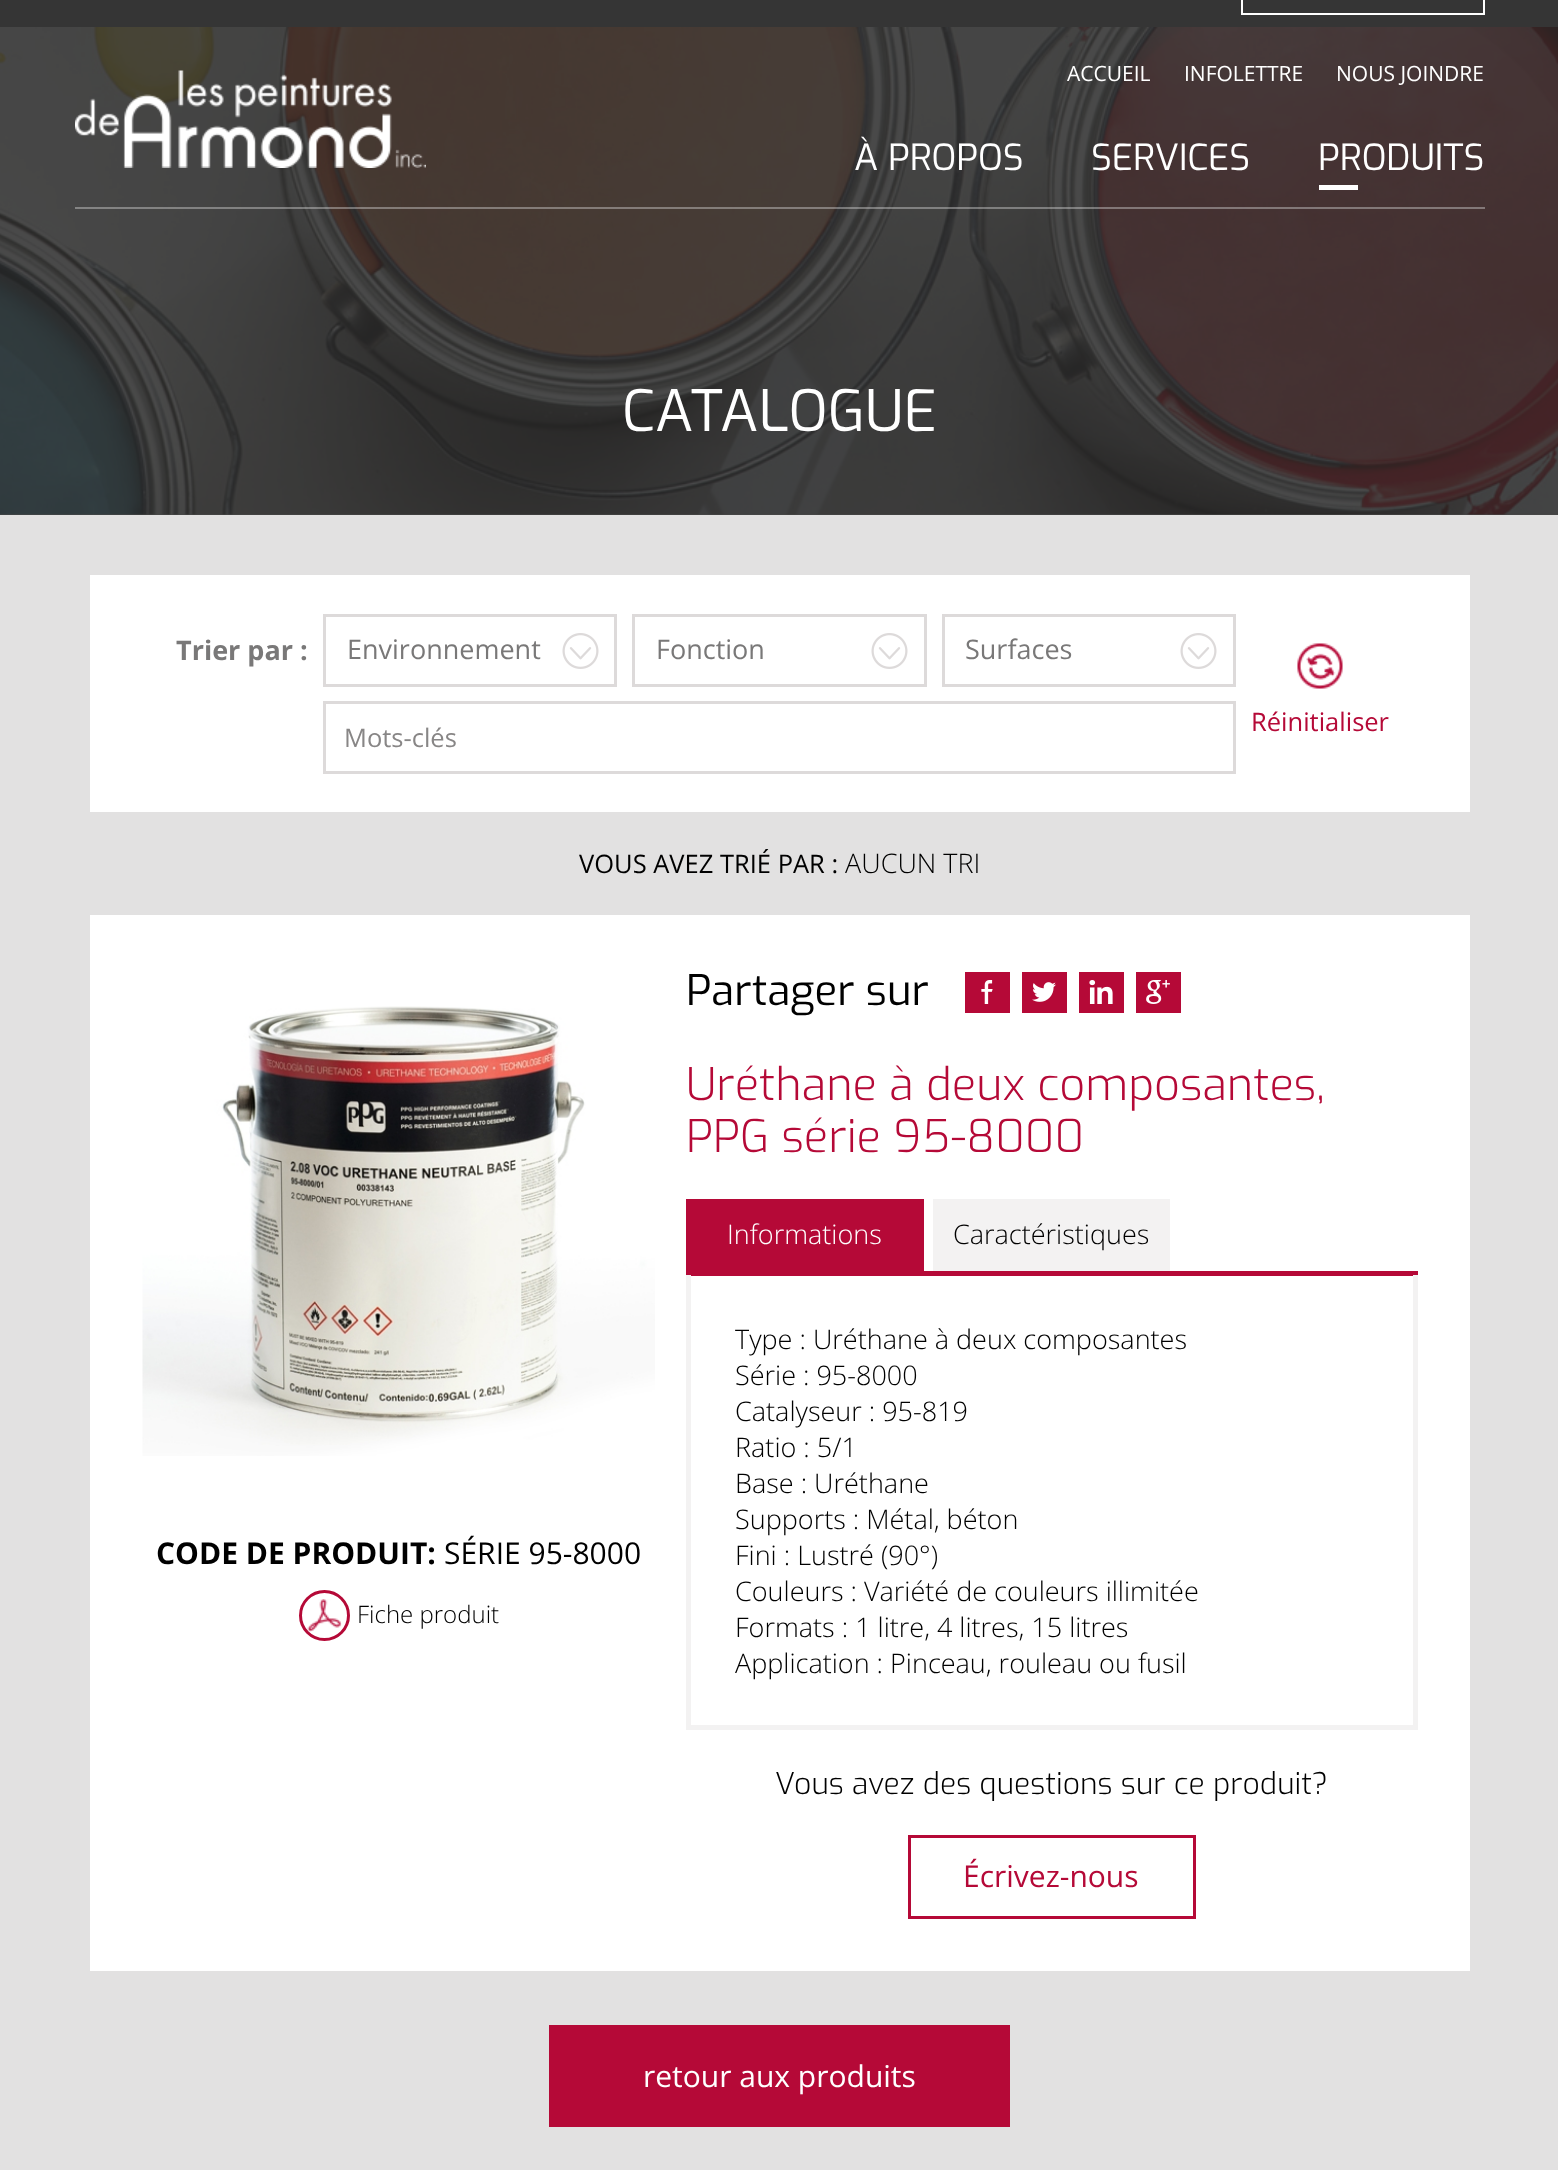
<svg xmlns="http://www.w3.org/2000/svg" width="1558" height="2170" viewBox="0 0 1558 2170">
  <rect width="100%" height="100%" fill="rgb(255,255,255)"/>
  <rect x="0" y="0" width="1558" height="27" fill="rgb(53,53,53)"/>
  <rect x="1242" y="-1" width="242" height="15" fill="none" stroke="rgb(255,255,255)" stroke-width="2"/>
  <image x="0" y="27" width="1558" height="488" href="pic1.png"/>
  <rect x="0" y="27" width="1558" height="180" fill="rgba(41,41,41,0.85)"/>
  <image x="75" y="70" width="351" height="98" href="pic2.png"/>
  <g font-family="Open Sans" font-size="21" fill="rgb(255,255,255)">
    <text x="1067" y="81">ACCUEIL</text>
    <text x="1184" y="81">INFOLETTRE</text>
    <text x="1336" y="81">NOUS JOINDRE</text>
  </g>
  <g font-family="Exo" font-size="36" fill="rgb(255,255,255)">
    <text x="854" y="170">À PROPOS</text>
    <text x="1091" y="170">SERVICES</text>
    <text x="1318" y="170">PRODUITS</text>
  </g>
  <rect x="1319" y="185" width="39" height="5" fill="rgb(255,255,255)"/>
  <rect x="0" y="207" width="1558" height="308" fill="rgba(41,41,41,0.85)"/>
  <rect x="75" y="207" width="1410" height="2" fill="rgba(225,225,225,0.4)"/>
  <text x="622" y="431" font-family="Exo" font-size="57" fill="rgb(255,255,255)">CATALOGUE</text>
  <rect x="0" y="515" width="1558" height="1655" fill="rgb(226,225,225)"/>
  <rect x="90" y="575" width="1380" height="237" fill="rgb(255,255,255)"/>
  <text x="176" y="660" font-family="Open Sans" font-size="27" font-weight="bold" fill="rgb(121,120,120)">Trier par :</text>
  <rect x="324.5" y="615.5" width="291" height="70" fill="none" stroke="rgb(221,218,218)" stroke-width="3"/>
  <text x="347" y="659" font-family="Open Sans" font-size="27" fill="rgb(121,120,120)">Environnement</text>
  <image x="562" y="633" width="37" height="36" href="pic3.png"/>
  <rect x="633.5" y="615.5" width="292" height="70" fill="none" stroke="rgb(221,218,218)" stroke-width="3"/>
  <text x="656" y="659" font-family="Open Sans" font-size="27" fill="rgb(121,120,120)">Fonction</text>
  <image x="871" y="633" width="37" height="36" href="pic3.png"/>
  <rect x="943.5" y="615.5" width="291" height="70" fill="none" stroke="rgb(221,218,218)" stroke-width="3"/>
  <text x="965" y="659" font-family="Open Sans" font-size="27" fill="rgb(121,120,120)">Surfaces</text>
  <image x="1180" y="633" width="37" height="36" href="pic3.png"/>
  <rect x="324.5" y="702.5" width="910" height="70" fill="none" stroke="rgb(221,218,218)" stroke-width="3"/>
  <text x="344" y="747" font-family="Open Sans" font-size="25.5" fill="rgb(136,134,134)">Mots-clés</text>
  <image x="1297" y="643" width="46" height="46" href="pic4.png"/>
  <text x="1251" y="731" font-family="Open Sans" font-size="25.5" fill="rgb(181,9,55)">Réinitialiser</text>
  <text x="579" y="873" font-family="Open Sans" font-size="25.5" fill="rgb(0,0,0)">VOUS AVEZ TRIÉ PAR :</text>
  <text x="845" y="873" font-family="Open Sans" font-size="27" font-weight="300" fill="rgb(0,0,0)">AUCUN TRI</text>
  <rect x="90" y="915" width="1380" height="1056" fill="rgb(255,255,255)"/>
  <image x="142" y="1006" width="513" height="450" href="pic5.png"/>
  <text x="156" y="1564" font-family="Open Sans" font-size="30" font-weight="bold" fill="rgb(0,0,0)">CODE DE PRODUIT:</text>
  <text x="444" y="1564" font-family="Open Sans" font-size="30" fill="rgb(0,0,0)">SÉRIE 95-8000</text>
  <image x="307" y="1599" width="35" height="33" href="pic6.png"/>
  <circle cx="324.5" cy="1615.5" r="24" fill="none" stroke="rgb(181,9,55)" stroke-width="3"/>
  <text x="357" y="1623" font-family="Open Sans" font-size="24" font-weight="300" fill="rgb(0,0,0)">Fiche produit</text>
  <text x="686" y="1005" font-family="Exo" font-size="42" fill="rgb(0,0,0)">Partager sur</text>
  <rect x="965" y="972" width="45" height="41" fill="rgb(181,9,55)"/>
  <image x="981" y="980" width="12" height="24" href="pic7.png"/>
  <rect x="1022" y="972" width="45" height="41" fill="rgb(181,9,55)"/>
  <image x="1032" y="982" width="24" height="20" href="pic8.png"/>
  <rect x="1079" y="972" width="45" height="41" fill="rgb(181,9,55)"/>
  <image x="1089" y="980" width="24" height="24" href="pic9.png"/>
  <rect x="1136" y="972" width="45" height="41" fill="rgb(181,9,55)"/>
  <image x="1146" y="980" width="24" height="24" href="pic10.png"/>
  <g font-family="Exo" font-size="45" font-weight="300" fill="rgb(181,9,55)">
    <text>
      <tspan x="686" y="1100">Uréthane à deux composantes,</tspan>
      <tspan x="686" y="1152">PPG série 95-8000</tspan>
    </text>
  </g>
  <rect x="686" y="1199" width="238" height="72" fill="rgb(181,9,55)"/>
  <text x="727" y="1244" font-family="Open Sans" font-size="27" font-weight="300" fill="rgb(255,255,255)">Informations</text>
  <rect x="933" y="1199" width="237" height="72" fill="rgb(243,242,242)"/>
  <text x="953" y="1244" font-family="Open Sans" font-size="27" font-weight="300" fill="rgb(0,0,0)">Caractéristiques</text>
  <rect x="686" y="1271" width="732" height="5" fill="rgb(181,9,55)"/>
  <rect x="1413" y="1275" width="5" height="455" fill="rgb(243,242,242)"/>
  <rect x="686" y="1725" width="732" height="5" fill="rgb(243,242,242)"/>
  <rect x="686" y="1275" width="5" height="455" fill="rgb(243,242,242)"/>
  <g font-family="Open Sans" font-size="27" font-weight="300" fill="rgb(0,0,0)">
    <text>
      <tspan x="735" y="1349">Type : Uréthane à deux composantes</tspan>
      <tspan x="735" y="1385">Série : 95-8000</tspan>
      <tspan x="735" y="1421">Catalyseur : 95-819</tspan>
      <tspan x="735" y="1457">Ratio : 5/1</tspan>
      <tspan x="735" y="1493">Base : Uréthane</tspan>
      <tspan x="735" y="1529">Supports : Métal, béton</tspan>
      <tspan x="735" y="1565">Fini : Lustré (90°)</tspan>
      <tspan x="735" y="1601">Couleurs : Variété de couleurs illimitée</tspan>
      <tspan x="735" y="1637">Formats : 1 litre, 4 litres, 15 litres</tspan>
      <tspan x="735" y="1673">Application : Pinceau, rouleau ou fusil</tspan>
    </text>
  </g>
  <text x="775" y="1794" font-family="Exo" font-size="30" font-weight="300" fill="rgb(0,0,0)">Vous avez des questions sur ce produit?</text>
  <rect x="909.5" y="1836.5" width="285" height="81" fill="none" stroke="rgb(181,9,55)" stroke-width="3"/>
  <text x="963" y="1887" font-family="Open Sans" font-size="30" fill="rgb(181,9,55)">Écrivez-nous</text>
  <rect x="549" y="2025" width="461" height="102" fill="rgb(181,9,55)"/>
  <text x="643" y="2087" font-family="Open Sans" font-size="30" fill="rgb(255,255,255)">retour aux produits</text>
</svg>
